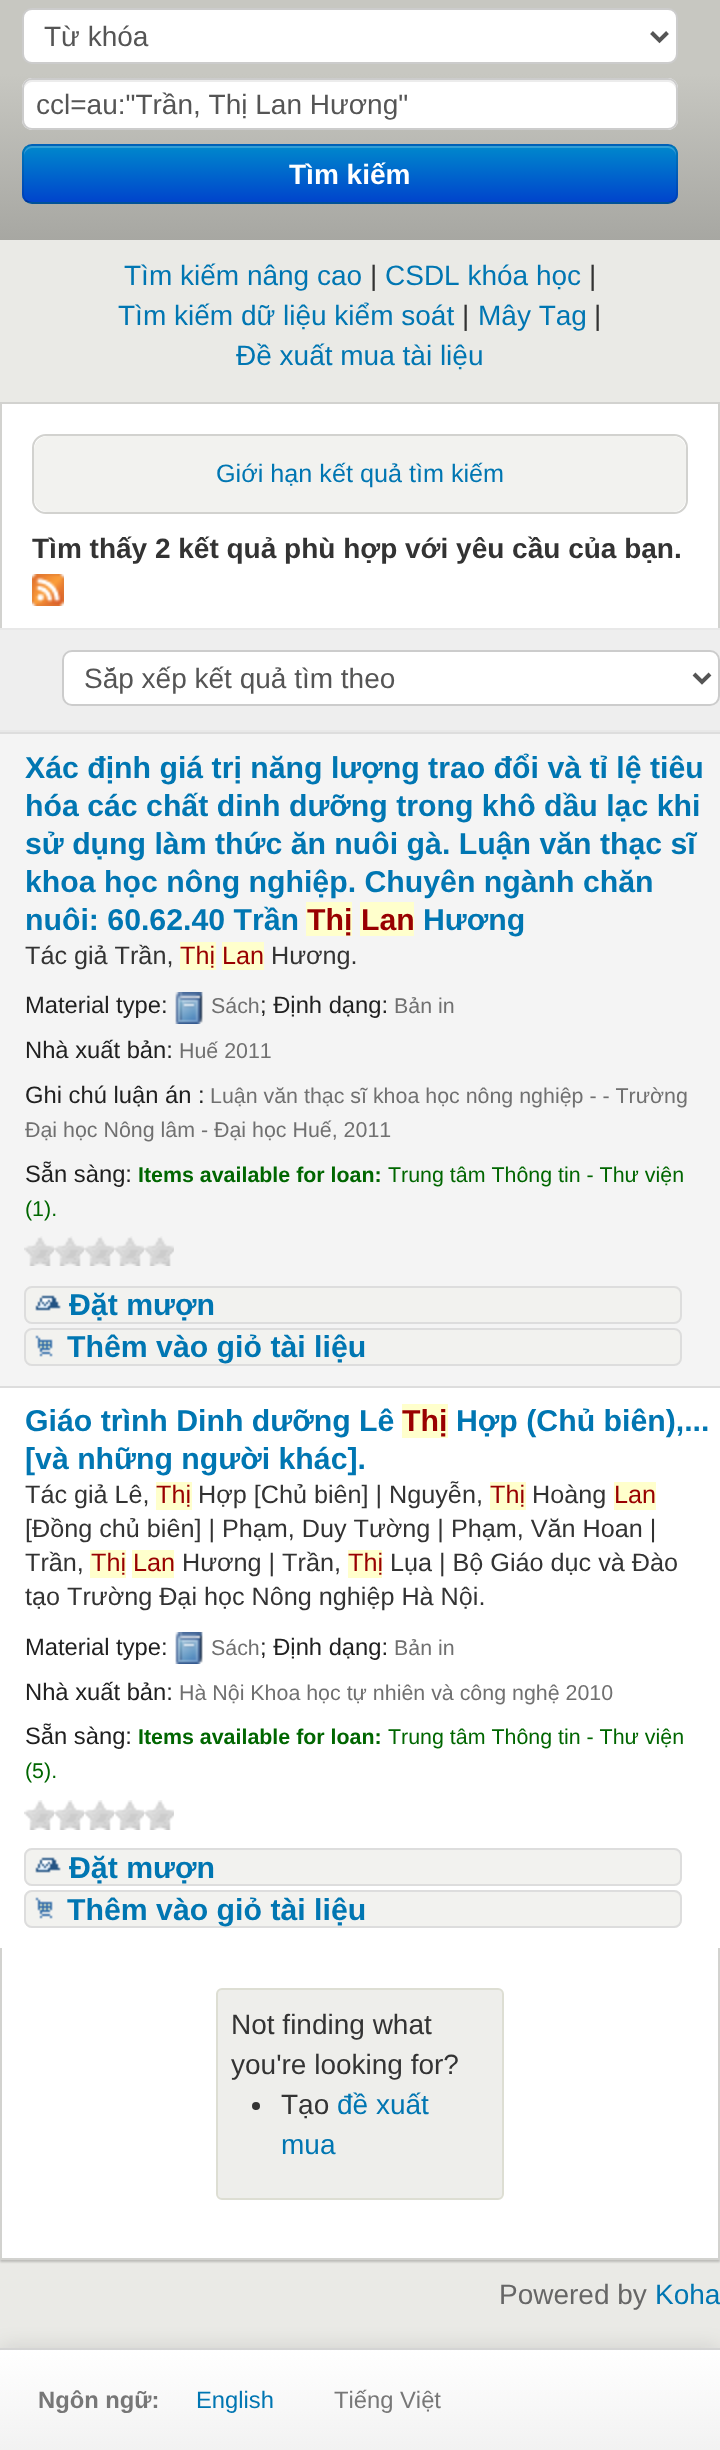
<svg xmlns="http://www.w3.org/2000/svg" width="720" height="2450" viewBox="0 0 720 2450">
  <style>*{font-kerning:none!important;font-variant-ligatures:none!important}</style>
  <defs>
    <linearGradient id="g1" gradientUnits="userSpaceOnUse" x1="360" y1="-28" x2="360" y2="240"><stop offset="0.38" stop-color="rgb(199,199,193)"/><stop offset="1" stop-color="rgb(167,167,162)"/></linearGradient>
    <clipPath id="clip1"><rect x="22" y="144" width="656" height="60" rx="10"/></clipPath>
    <linearGradient id="g2" gradientUnits="userSpaceOnUse" x1="350" y1="146" x2="350" y2="202"><stop offset="0" stop-color="rgb(0,136,204)"/><stop offset="1" stop-color="rgb(0,68,204)"/></linearGradient>
    <linearGradient id="g3" gradientUnits="userSpaceOnUse" x1="360" y1="2350" x2="360" y2="2450"><stop offset="0" stop-color="rgb(255,255,255)"/><stop offset="1" stop-color="rgb(242,242,242)"/></linearGradient>
  </defs>
  <rect width="100%" height="100%" fill="rgb(234,234,230)"/>
  <rect x="0" y="0" width="720" height="240" fill="url(#g1)"/>
  <rect x="23" y="9" width="654" height="54" rx="9" fill="rgb(255,255,255)" stroke="rgb(204,204,204)" stroke-width="2"/>
  <path d="M651.5 32.5L659.5 40.5L667.5 32.5" fill="none" stroke="rgb(85,85,85)" stroke-width="4"/>
  <text x="44" y="46" font-family="Liberation Sans" font-size="28" fill="rgb(85,85,85)">Từ khóa</text>
  <rect x="22" y="78" width="656" height="52" rx="10" fill="rgb(255,255,255)"/>
  <path d="M32 82H668C672 82 676 86 676 90V88C676 84 672 80 668 80H32C28 80 24 84 24 88V90C24 86 28 82 32 82Z" fill="rgb(236,236,236)"/>
  <rect x="23" y="79" width="654" height="50" rx="9" fill="none" stroke="rgb(204,204,204)" stroke-width="2"/>
  <text x="36" y="114" font-family="Liberation Sans" font-size="28" fill="rgb(85,85,85)">ccl=au:"Trần, Thị Lan Hương"</text>
  <rect x="22" y="144" width="656" height="60" rx="10" fill="rgb(0,109,204)"/>
  <g clip-path="url(#clip1)">
    <rect x="22" y="146" width="656" height="56" fill="url(#g2)"/>
  </g>
  <path d="M32 148H668C672 148 676 152 676 156V154C676 150 672 146 668 146H32C28 146 24 150 24 154V156C24 152 28 148 32 148Z" fill="rgba(255,255,255,0.2)"/>
  <path d="M674.5 200.5C672.5 202 670.5 203 668 203H32C29.5 203 27.5 202 25.5 200.5" fill="none" stroke="rgba(0,0,0,0.25)" stroke-width="2"/>
  <path d="M25.5 200.5C24 198.5 23 196.5 23 194V154C23 151.5 24 149.5 25.5 147.5C27.5 146 29.5 145 32 145H668C670.5 145 672.5 146 674.5 147.5C676 149.5 677 151.5 677 154V194C677 196.5 676 198.5 674.5 200.5" fill="none" stroke="rgba(0,0,0,0.1)" stroke-width="2"/>
  <text x="289" y="184" font-family="Liberation Sans" font-size="28" font-weight="bold" fill="rgb(255,255,255)">Tìm kiếm</text>
  <text x="124" y="285" font-family="Liberation Sans" font-size="28" fill="rgb(0,118,178)">Tìm kiếm nâng cao</text>
  <text x="370" y="285" font-family="Liberation Sans" font-size="28" fill="rgb(51,51,51)">|</text>
  <text x="385" y="285" font-family="Liberation Sans" font-size="28" fill="rgb(0,118,178)">CSDL khóa học</text>
  <text x="589" y="285" font-family="Liberation Sans" font-size="28" fill="rgb(51,51,51)">|</text>
  <text x="118" y="325" font-family="Liberation Sans" font-size="28" fill="rgb(0,118,178)">Tìm kiếm dữ liệu kiểm soát</text>
  <text x="462" y="325" font-family="Liberation Sans" font-size="28" fill="rgb(51,51,51)">|</text>
  <text x="478" y="325" font-family="Liberation Sans" font-size="28" fill="rgb(0,118,178)">Mây Tag</text>
  <text x="594" y="325" font-family="Liberation Sans" font-size="28" fill="rgb(51,51,51)">|</text>
  <text x="236" y="365" font-family="Liberation Sans" font-size="28" fill="rgb(0,118,178)">Đề xuất mua tài liệu</text>
  <rect x="0" y="404" width="720" height="1858" fill="rgba(0,0,0,0.2)" filter="blur(1px)"/>
  <rect x="1" y="403" width="718" height="1856" fill="rgb(255,255,255)" stroke="rgb(210,210,207)" stroke-width="2"/>
  <rect x="33" y="435" width="654" height="78" rx="13" fill="none" stroke="rgb(210,210,207)" stroke-width="2"/>
  <rect x="34" y="436" width="652" height="76" rx="14" fill="rgb(242,242,239)"/>
  <text x="216" y="482" font-family="Liberation Sans" font-size="25.2" fill="rgb(0,118,178)">Giới hạn kết quả tìm kiếm</text>
  <text x="32" y="558" font-family="Liberation Sans" font-size="28" font-weight="bold" fill="rgb(51,51,51)">Tìm thấy 2 kết quả phù hợp với yêu cầu của bạn.</text>
  <image x="32" y="574" width="32" height="32" href="pic1.png"/>
  <rect x="-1" y="629" width="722" height="102" fill="rgb(238,238,238)" stroke="rgb(232,232,232)" stroke-width="2"/>
  <rect x="63" y="651" width="656" height="54" rx="9" fill="rgb(255,255,255)" stroke="rgb(204,204,204)" stroke-width="2"/>
  <path d="M694 674L702 682L710 674" fill="none" stroke="rgb(85,85,85)" stroke-width="4"/>
  <text x="84" y="688" font-family="Liberation Sans" font-size="28" fill="rgb(85,85,85)">Sắp xếp kết quả tìm theo</text>
  <rect x="0" y="1388" width="720" height="560" fill="rgb(255,255,255)"/>
  <rect x="0" y="734" width="720" height="652" fill="rgb(244,244,244)"/>
  <rect x="0" y="732" width="720" height="2" fill="rgb(221,221,221)"/>
  <g font-family="Liberation Sans" font-size="30.25" font-weight="bold" fill="rgb(0,118,178)">
    <text>
      <tspan x="25" y="778">Xác định giá trị năng lượng trao đổi và tỉ lệ tiêu</tspan>
      <tspan x="25" y="816">hóa các chất dinh dưỡng trong khô dầu lạc khi</tspan>
      <tspan x="25" y="854">sử dụng làm thức ăn nuôi gà. Luận văn thạc sĩ</tspan>
      <tspan x="25" y="892">khoa học nông nghiệp. Chuyên ngành chăn</tspan>
      <tspan x="25" y="930">nuôi: 60.62.40 Trần</tspan>
    </text>
  </g>
  <rect x="306" y="902" width="46" height="34" fill="rgb(255,255,204)"/>
  <text x="307" y="930" font-family="Liberation Sans" font-size="30.25" font-weight="bold" fill="rgb(153,0,0)">Thị</text>
  <rect x="360" y="902" width="54" height="34" fill="rgb(255,255,204)"/>
  <text x="361" y="930" font-family="Liberation Sans" font-size="30.25" font-weight="bold" fill="rgb(153,0,0)">Lan</text>
  <text x="423" y="930" font-family="Liberation Sans" font-size="30.25" font-weight="bold" fill="rgb(0,118,178)">Hương</text>
  <text x="25" y="964" font-family="Liberation Sans" font-size="25.2" fill="rgb(51,51,51)">Tác giả Trần,</text>
  <rect x="180" y="942" width="36" height="28" fill="rgb(255,255,204)"/>
  <text x="180" y="964" font-family="Liberation Sans" font-size="25.2" fill="rgb(153,0,0)">Thị</text>
  <rect x="222" y="942" width="42" height="28" fill="rgb(255,255,204)"/>
  <text x="222" y="964" font-family="Liberation Sans" font-size="25.2" fill="rgb(153,0,0)">Lan</text>
  <text x="271" y="964" font-family="Liberation Sans" font-size="25.2" fill="rgb(51,51,51)">Hương.</text>
  <text x="25" y="1013" font-family="Liberation Sans" font-size="23.75" fill="rgb(32,32,32)">Material type:</text>
  <image x="175" y="992" width="28" height="32" href="pic2.png"/>
  <text x="211" y="1013" font-family="Liberation Sans" font-size="21.4" fill="rgb(112,112,112)">Sách</text>
  <text x="260" y="1013" font-family="Liberation Sans" font-size="23.75" fill="rgb(32,32,32)">; Định dạng:</text>
  <text x="394" y="1013" font-family="Liberation Sans" font-size="21.4" fill="rgb(112,112,112)">Bản in</text>
  <text x="25" y="1058" font-family="Liberation Sans" font-size="23.75" fill="rgb(32,32,32)">Nhà xuất bản:</text>
  <text x="179" y="1058" font-family="Liberation Sans" font-size="21.4" fill="rgb(112,112,112)">Huế 2011</text>
  <text x="25" y="1103" font-family="Liberation Sans" font-size="23.75" fill="rgb(32,32,32)">Ghi chú luận án :</text>
  <g font-family="Liberation Sans" font-size="21.4" fill="rgb(112,112,112)">
    <text x="210" y="1103">Luận văn thạc sĩ khoa học nông nghiệp - - Trường</text>
    <text x="25" y="1137">Đại học Nông lâm - Đại học Huế, 2011</text>
  </g>
  <text x="25" y="1182" font-family="Liberation Sans" font-size="23.75" fill="rgb(32,32,32)">Sẵn sàng:</text>
  <text x="138" y="1182" font-family="Liberation Sans" font-size="21.4" font-weight="bold" fill="rgb(0,102,0)">Items available for loan:</text>
  <g font-family="Liberation Sans" font-size="21.4" fill="rgb(0,102,0)">
    <text x="388" y="1182">Trung tâm Thông tin - Thư viện</text>
    <text x="25" y="1216">(1).</text>
  </g>
  <image x="24" y="1236" width="30" height="30" href="pic3.png"/>
  <image x="54" y="1236" width="30" height="30" href="pic3.png"/>
  <image x="84" y="1236" width="30" height="30" href="pic3.png"/>
  <image x="114" y="1236" width="30" height="30" href="pic3.png"/>
  <image x="144" y="1236" width="30" height="30" href="pic3.png"/>
  <rect x="24" y="1286" width="658" height="38" rx="8" fill="rgb(242,242,239)"/>
  <image x="35" y="1295" width="26" height="16" href="pic4.png"/>
  <rect x="25" y="1287" width="656" height="36" rx="7" fill="none" stroke="rgb(221,221,221)" stroke-width="2"/>
  <text x="69" y="1315" font-family="Liberation Sans" font-size="30.25" font-weight="bold" fill="rgb(0,118,178)">Đặt mượn</text>
  <rect x="24" y="1328" width="658" height="38" rx="8" fill="rgb(242,242,239)"/>
  <image x="35" y="1335" width="18" height="22" href="pic5.png"/>
  <rect x="25" y="1329" width="656" height="36" rx="7" fill="none" stroke="rgb(221,221,221)" stroke-width="2"/>
  <text x="67" y="1357" font-family="Liberation Sans" font-size="30.25" font-weight="bold" fill="rgb(0,118,178)">Thêm vào giỏ tài liệu</text>
  <rect x="0" y="1386" width="720" height="2" fill="rgb(221,221,221)"/>
  <text x="25" y="1431" font-family="Liberation Sans" font-size="30.25" font-weight="bold" fill="rgb(0,118,178)">Giáo trình Dinh dưỡng Lê</text>
  <rect x="402" y="1404" width="46" height="34" fill="rgb(255,255,204)"/>
  <text x="402" y="1431" font-family="Liberation Sans" font-size="30.25" font-weight="bold" fill="rgb(153,0,0)">Thị</text>
  <g font-family="Liberation Sans" font-size="30.25" font-weight="bold" fill="rgb(0,118,178)">
    <text x="456" y="1431">Hợp (Chủ biên),...</text>
    <text x="25" y="1469">[và những người khác].</text>
  </g>
  <text x="25" y="1503" font-family="Liberation Sans" font-size="25.2" fill="rgb(51,51,51)">Tác giả Lê,</text>
  <rect x="156" y="1482" width="36" height="28" fill="rgb(255,255,204)"/>
  <text x="156" y="1503" font-family="Liberation Sans" font-size="25.2" fill="rgb(153,0,0)">Thị</text>
  <text x="198" y="1503" font-family="Liberation Sans" font-size="25.2" fill="rgb(51,51,51)">Hợp [Chủ biên] | Nguyễn,</text>
  <rect x="490" y="1482" width="36" height="28" fill="rgb(255,255,204)"/>
  <text x="490" y="1503" font-family="Liberation Sans" font-size="25.2" fill="rgb(153,0,0)">Thị</text>
  <text x="532" y="1503" font-family="Liberation Sans" font-size="25.2" fill="rgb(51,51,51)">Hoàng</text>
  <rect x="614" y="1482" width="42" height="28" fill="rgb(255,255,204)"/>
  <text x="614" y="1503" font-family="Liberation Sans" font-size="25.2" fill="rgb(153,0,0)">Lan</text>
  <g font-family="Liberation Sans" font-size="25.2" fill="rgb(51,51,51)">
    <text>
      <tspan x="25" y="1537">[Đồng chủ biên] | Phạm, Duy Tường | Phạm, Văn Hoan |</tspan>
      <tspan x="25" y="1571">Trần,</tspan>
    </text>
  </g>
  <rect x="90" y="1550" width="36" height="28" fill="rgb(255,255,204)"/>
  <text x="91" y="1571" font-family="Liberation Sans" font-size="25.2" fill="rgb(153,0,0)">Thị</text>
  <rect x="132" y="1550" width="42" height="28" fill="rgb(255,255,204)"/>
  <text x="133" y="1571" font-family="Liberation Sans" font-size="25.2" fill="rgb(153,0,0)">Lan</text>
  <text x="182" y="1571" font-family="Liberation Sans" font-size="25.2" fill="rgb(51,51,51)">Hương | Trần,</text>
  <rect x="348" y="1550" width="34" height="28" fill="rgb(255,255,204)"/>
  <text x="348" y="1571" font-family="Liberation Sans" font-size="25.2" fill="rgb(153,0,0)">Thị</text>
  <g font-family="Liberation Sans" font-size="25.2" fill="rgb(51,51,51)">
    <text x="390" y="1571">Lụa | Bộ Giáo dục và Đào</text>
    <text x="25" y="1605">tạo Trường Đại học Nông nghiệp Hà Nội.</text>
  </g>
  <text x="25" y="1655" font-family="Liberation Sans" font-size="23.75" fill="rgb(32,32,32)">Material type:</text>
  <image x="175" y="1632" width="28" height="32" href="pic6.png"/>
  <text x="211" y="1655" font-family="Liberation Sans" font-size="21.4" fill="rgb(112,112,112)">Sách</text>
  <text x="260" y="1655" font-family="Liberation Sans" font-size="23.75" fill="rgb(32,32,32)">; Định dạng:</text>
  <text x="394" y="1655" font-family="Liberation Sans" font-size="21.4" fill="rgb(112,112,112)">Bản in</text>
  <text x="25" y="1700" font-family="Liberation Sans" font-size="23.75" fill="rgb(32,32,32)">Nhà xuất bản:</text>
  <text x="179" y="1700" font-family="Liberation Sans" font-size="21.4" fill="rgb(112,112,112)">Hà Nội Khoa học tự nhiên và công nghệ 2010</text>
  <text x="25" y="1744" font-family="Liberation Sans" font-size="23.75" fill="rgb(32,32,32)">Sẵn sàng:</text>
  <text x="138" y="1744" font-family="Liberation Sans" font-size="21.4" font-weight="bold" fill="rgb(0,102,0)">Items available for loan:</text>
  <g font-family="Liberation Sans" font-size="21.4" fill="rgb(0,102,0)">
    <text x="388" y="1744">Trung tâm Thông tin - Thư viện</text>
    <text x="25" y="1778">(5).</text>
  </g>
  <image x="24" y="1800" width="30" height="30" href="pic7.png"/>
  <image x="54" y="1800" width="30" height="30" href="pic7.png"/>
  <image x="84" y="1800" width="30" height="30" href="pic7.png"/>
  <image x="114" y="1800" width="30" height="30" href="pic7.png"/>
  <image x="144" y="1800" width="30" height="30" href="pic7.png"/>
  <rect x="24" y="1848" width="658" height="38" rx="8" fill="rgb(242,242,239)"/>
  <image x="35" y="1857" width="26" height="16" href="pic4.png"/>
  <rect x="25" y="1849" width="656" height="36" rx="7" fill="none" stroke="rgb(221,221,221)" stroke-width="2"/>
  <text x="69" y="1878" font-family="Liberation Sans" font-size="30.25" font-weight="bold" fill="rgb(0,118,178)">Đặt mượn</text>
  <rect x="24" y="1890" width="658" height="38" rx="8" fill="rgb(242,242,239)"/>
  <image x="35" y="1897" width="18" height="22" href="pic5.png"/>
  <rect x="25" y="1891" width="656" height="36" rx="7" fill="none" stroke="rgb(221,221,221)" stroke-width="2"/>
  <text x="67" y="1920" font-family="Liberation Sans" font-size="30.25" font-weight="bold" fill="rgb(0,118,178)">Thêm vào giỏ tài liệu</text>
  <rect x="217" y="1989" width="286" height="210" rx="5" fill="rgb(238,238,235)" stroke="rgb(221,222,211)" stroke-width="2"/>
  <g font-family="Liberation Sans" font-size="28" fill="rgb(51,51,51)">
    <text>
      <tspan x="231" y="2034">Not finding what</tspan>
      <tspan x="231" y="2074">you're looking for?</tspan>
    </text>
  </g>
  <circle cx="256" cy="2106" r="4" fill="rgb(51,51,51)"/>
  <text x="281" y="2114" font-family="Liberation Sans" font-size="28" fill="rgb(51,51,51)">Tạo</text>
  <g font-family="Liberation Sans" font-size="28" fill="rgb(0,118,178)">
    <text x="337" y="2114">đề xuất</text>
    <text x="281" y="2154">mua</text>
  </g>
  <text x="499" y="2304" font-family="Liberation Sans" font-size="28" fill="rgb(102,102,102)">Powered by</text>
  <text x="655" y="2304" font-family="Liberation Sans" font-size="28" fill="rgb(0,118,178)">Koha</text>
  <rect x="0" y="2346" width="720" height="102" fill="rgba(0,0,0,0.1)" filter="blur(10px)"/>
  <rect x="0" y="2350" width="720" height="100" fill="url(#g3)"/>
  <rect x="0" y="2348" width="720" height="2" fill="rgb(212,212,212)"/>
  <text x="38" y="2408" font-family="Liberation Sans" font-size="23.75" font-weight="bold" fill="rgb(119,119,119)">Ngôn ngữ:</text>
  <text x="196" y="2408" font-family="Liberation Sans" font-size="23.75" fill="rgb(0,118,178)">English</text>
  <text x="334" y="2408" font-family="Liberation Sans" font-size="23.75" fill="rgb(119,119,119)">Tiếng Việt</text>
</svg>
